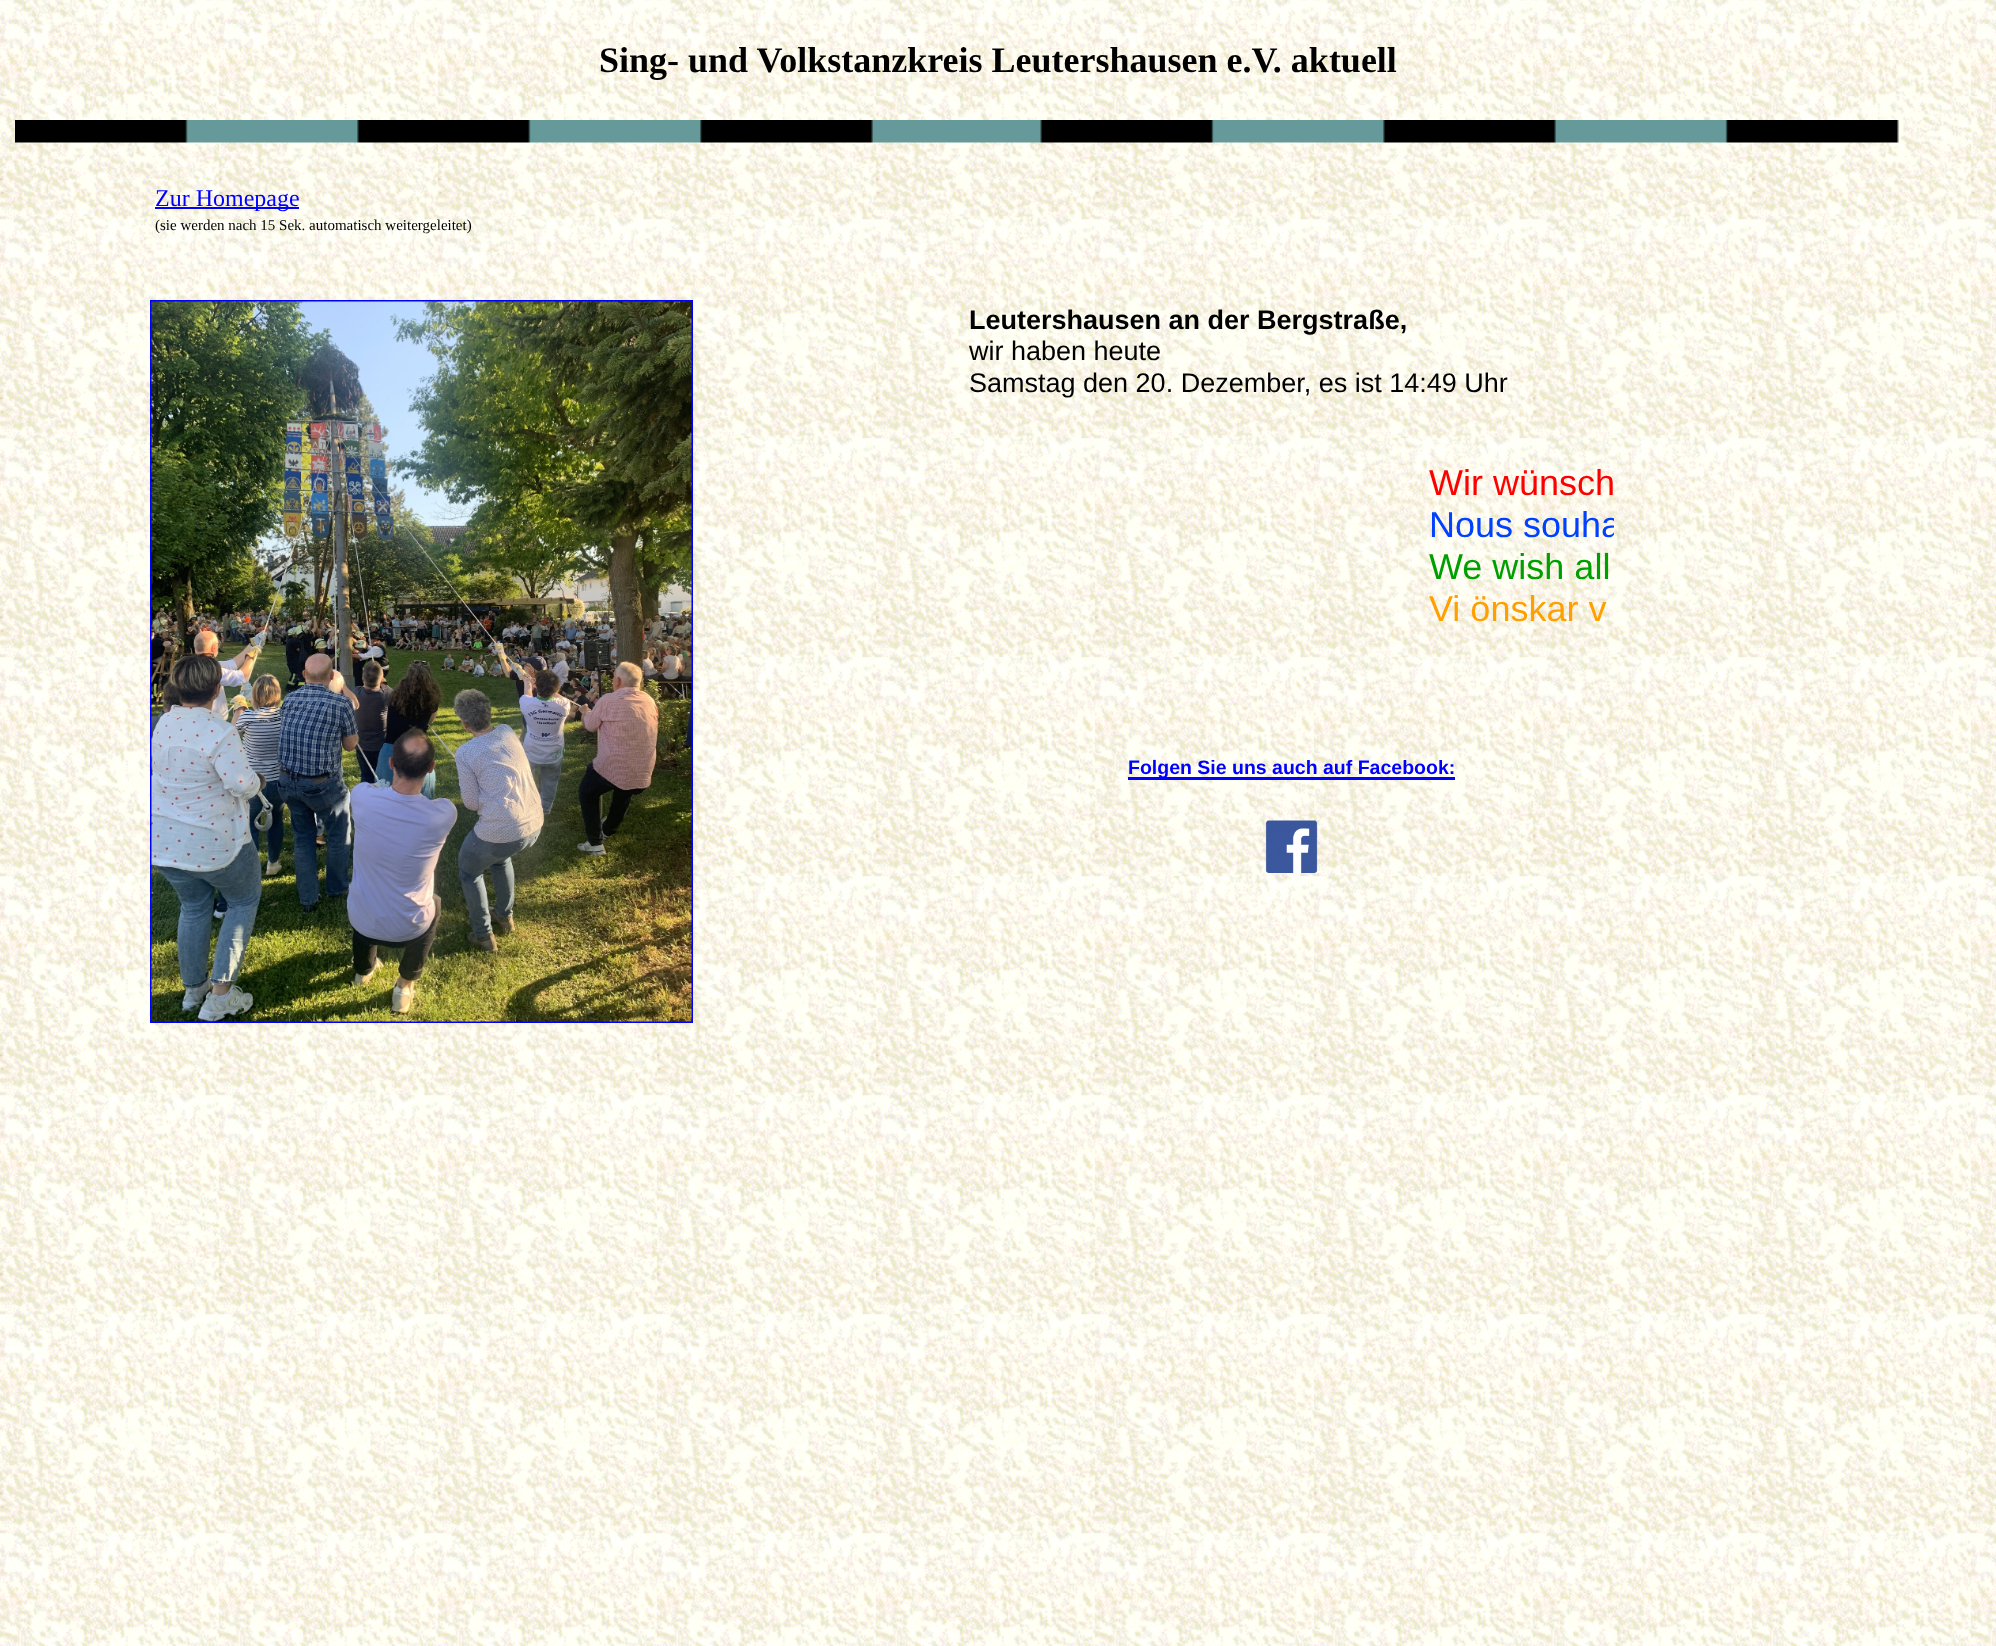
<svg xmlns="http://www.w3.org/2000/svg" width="1996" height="1646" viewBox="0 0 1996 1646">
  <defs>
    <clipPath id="clip1"><rect x="969" y="462" width="645" height="168"/></clipPath>
  </defs>
  <rect width="100%" height="100%" fill="rgb(255,255,255)"/>
  <image x="0" y="0" width="1996" height="1646" href="pic1.png"/>
  <text x="599" y="72" font-family="Liberation Serif" font-size="36" font-weight="bold" fill="rgb(0,0,0)">Sing- und Volkstanzkreis Leutershausen e.V. aktuell</text>
  <image x="15" y="120" width="1884" height="23" href="pic2.png"/>
  <rect x="155" y="207" width="144" height="2" fill="rgb(0,0,255)"/>
  <text x="155" y="206" font-family="Liberation Serif" font-size="24" fill="rgb(0,0,255)">Zur Homepage</text>
  <text x="155" y="230" font-family="Liberation Serif" font-size="15" fill="rgb(0,0,0)">(sie werden nach 15 Sek. automatisch weitergeleitet)</text>
  <rect x="151" y="301" width="541" height="721" fill="none" stroke="rgb(0,0,255)" stroke-width="2"/>
  <image x="151" y="301" width="541" height="721" href="pic3.png"/>
  <text x="969" y="329" font-family="Liberation Sans" font-size="27" font-weight="bold" fill="rgb(0,0,0)">Leutershausen an der Bergstraße,</text>
  <g font-family="Liberation Sans" font-size="27" fill="rgb(0,0,0)">
    <text>
      <tspan x="969" y="360">wir haben heute</tspan>
      <tspan x="969" y="392">Samstag den 20. Dezember, es ist 14:49 Uhr</tspan>
    </text>
  </g>
  <text x="1429" y="495" font-family="Liberation Sans" font-size="36" fill="rgb(255,0,0)">Wir wünsch</text>
  <g clip-path="url(#clip1)">
    <text x="1429" y="537" font-family="Liberation Sans" font-size="36" fill="rgb(0,64,255)">Nous souha</text>
  </g>
  <text x="1429" y="579" font-family="Liberation Sans" font-size="36" fill="rgb(0,159,0)">We wish all</text>
  <text x="1429" y="621" font-family="Liberation Sans" font-size="36" fill="rgb(255,159,0)">Vi önskar v</text>
  <rect x="1128" y="777" width="327" height="3" fill="rgb(0,0,255)"/>
  <text x="1128" y="774" font-family="Liberation Sans" font-size="19.5" font-weight="bold" fill="rgb(0,0,255)">Folgen Sie uns auch auf Facebook:</text>
  <image x="1265" y="820" width="53" height="53" href="pic4.png"/>
</svg>
